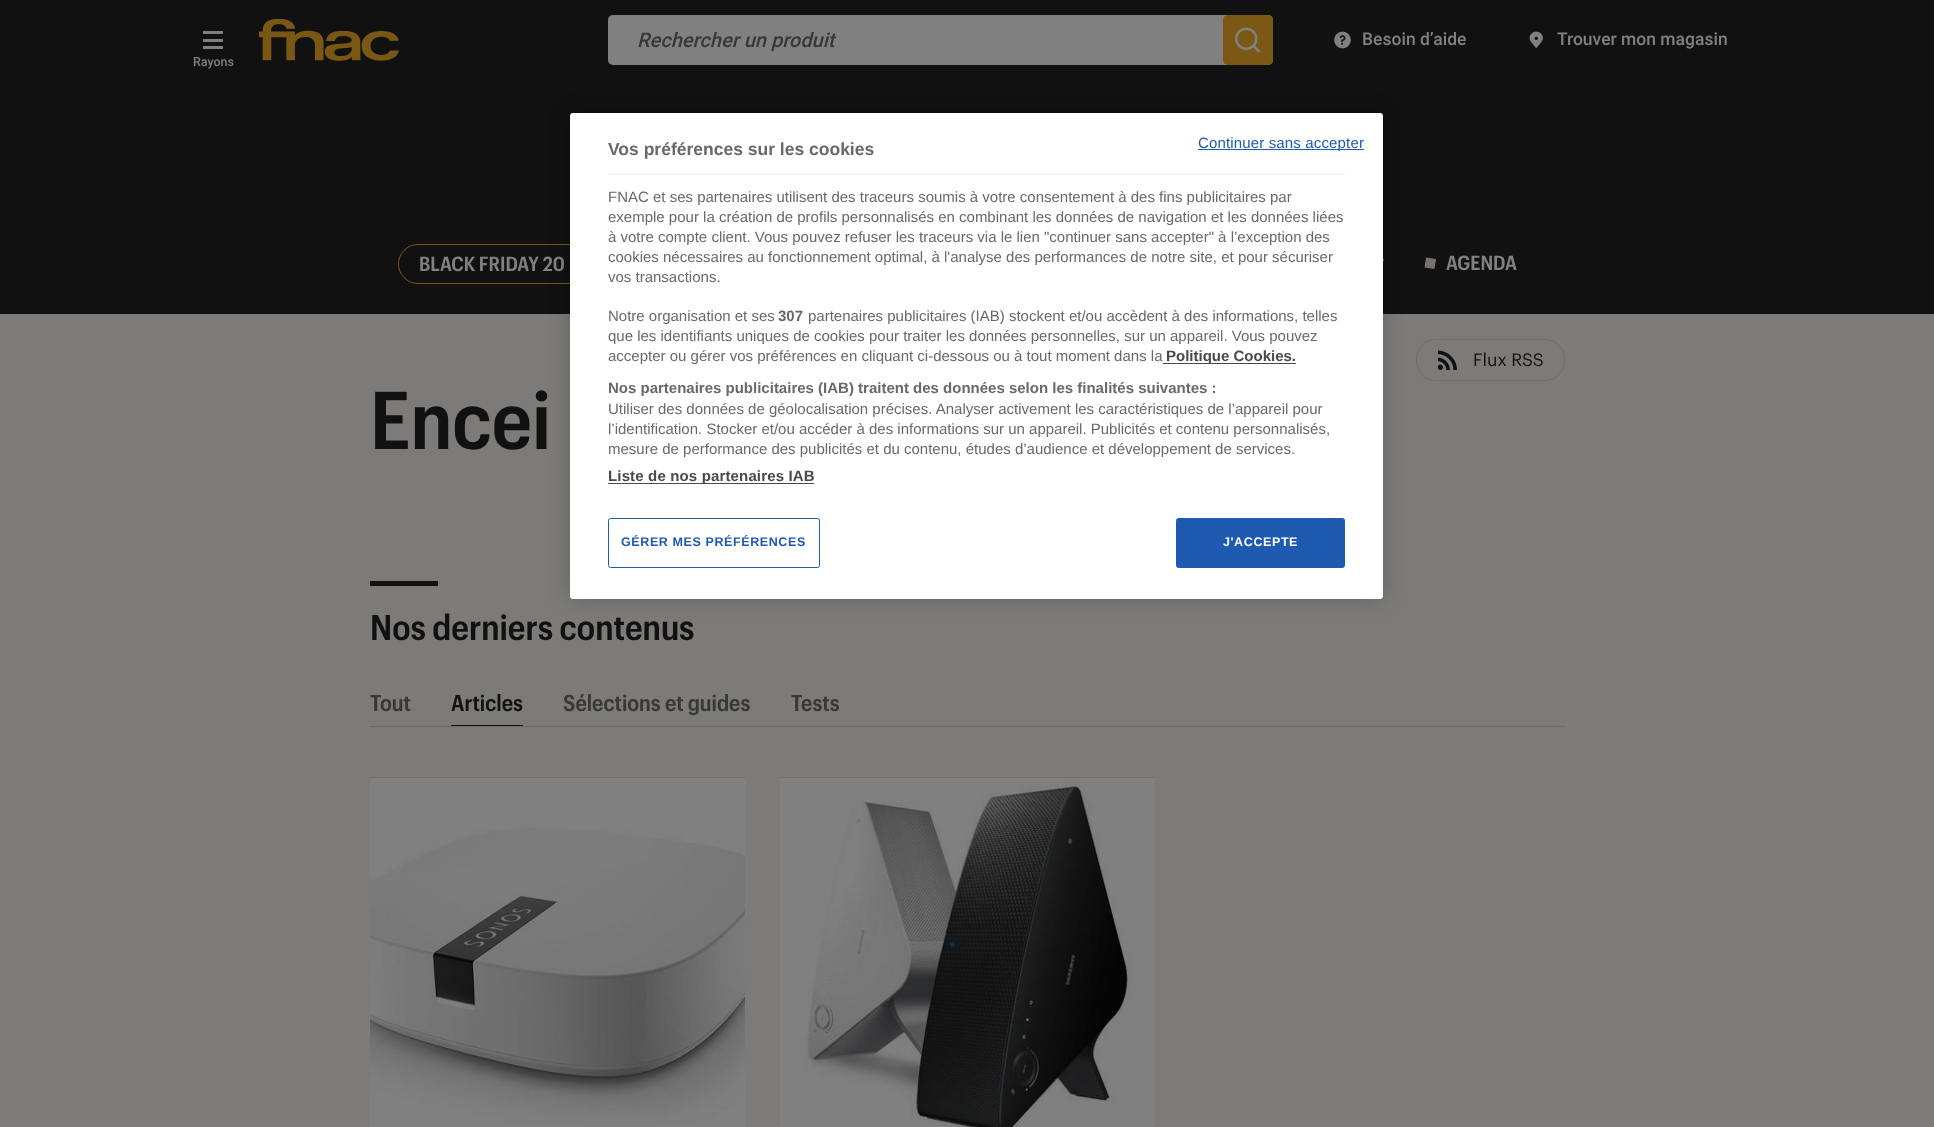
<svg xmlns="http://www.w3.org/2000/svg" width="1934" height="1127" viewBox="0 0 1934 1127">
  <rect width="100%" height="100%" fill="rgb(124,123,121)"/>
  <rect x="0" y="0" width="1934" height="314" fill="rgb(17,17,17)"/>
  <image x="259" y="19" width="140" height="42" href="pic1.png"/>
  <rect x="608" y="15" width="665" height="50" rx="5" fill="rgb(128,128,128)"/>
  <text x="637" y="47" font-family="Roboto" font-size="20" font-weight="500" font-style="italic" fill="rgb(56,56,54)">Rechercher un produit</text>
  <rect x="1223" y="15" width="50" height="50" rx="5" fill="rgb(123,88,20)"/>
  <image x="1235" y="27" width="26" height="26" href="pic2.png"/>
  <image x="1334" y="31" width="17" height="18" href="pic3.png"/>
  <text x="1362" y="45" font-family="Roboto" font-size="17.5" font-weight="500" fill="rgb(128,128,128)">Besoin d’aide</text>
  <image x="1529" y="31" width="14" height="18" href="pic4.png"/>
  <text x="1557" y="45" font-family="Roboto" font-size="17.5" font-weight="500" fill="rgb(128,128,128)">Trouver mon magasin</text>
  <rect x="203" y="31" width="20" height="3" fill="rgb(128,128,128)"/>
  <rect x="203" y="39" width="20" height="3" fill="rgb(128,128,128)"/>
  <rect x="203" y="46" width="20" height="3" fill="rgb(128,128,128)"/>
  <text x="193" y="66" font-family="Roboto" font-size="12.5" font-weight="500" fill="rgb(128,128,128)">Rayons</text>
  <rect x="398.5" y="244.5" width="209" height="39" rx="19.5" fill="none" stroke="rgb(123,88,20)"/>
  <text x="419" y="271" font-family="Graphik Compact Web" font-size="20" font-weight="600" fill="rgb(128,128,128)">BLACK FRIDAY 20</text>
  <image x="1383" y="258" width="1" height="4" href="pic5.png"/>
  <path d="M1426 257.5L1436 259L1434.5 269L1424.5 267.5Z" fill="rgb(117,115,108)"/>
  <text x="1446" y="270" font-family="Graphik Compact Web" font-size="20" font-weight="600" fill="rgb(128,128,128)">AGENDA</text>
  <rect x="1416.5" y="339.5" width="148" height="41" rx="19.5" fill="none" stroke="rgb(113,110,101)"/>
  <image x="1438" y="350" width="19" height="20" href="pic6.png"/>
  <text x="1473" y="366" font-family="Graphik" font-size="17.5" fill="rgb(17,17,17)">Flux RSS</text>
  <text x="370" y="449" font-family="Graphik Compact Web" font-size="80" font-weight="600" fill="rgb(17,17,17)">Encei</text>
  <rect x="370" y="581" width="68" height="5" fill="rgb(17,17,17)"/>
  <text x="370" y="640" font-family="Graphik Compact Web" font-size="35" font-weight="600" fill="rgb(17,17,17)">Nos derniers contenus</text>
  <rect x="370" y="726" width="1195" height="1" fill="rgb(109,108,105)"/>
  <text x="370" y="711" font-family="Graphik Compact Web" font-size="22.5" font-weight="600" fill="rgb(56,56,54)">Tout</text>
  <text x="451" y="711" font-family="Graphik Compact Web" font-size="22.5" font-weight="600" fill="rgb(17,17,17)">Articles</text>
  <rect x="451" y="725" width="72" height="1" fill="rgb(17,17,17)"/>
  <g font-family="Graphik Compact Web" font-size="22.5" font-weight="600" fill="rgb(56,56,54)">
    <text x="563" y="711">Sélections et guides</text>
    <text x="791" y="711">Tests</text>
  </g>
  <image x="370" y="777" width="375" height="1" href="pic7.png"/>
  <image x="370" y="777" width="375" height="350" href="pic8.png"/>
  <image x="780" y="777" width="375" height="1" href="pic7.png"/>
  <image x="780" y="777" width="375" height="350" href="pic9.png"/>
  <rect x="570" y="113" width="813" height="486" rx="3" fill="rgba(0,0,0,0.2)" filter="blur(11px)"/>
  <rect x="570" y="113" width="813" height="486" rx="3" fill="rgb(255,255,255)"/>
  <rect x="1198" y="149" width="166" height="1" fill="rgb(31,90,177)"/>
  <text x="1198" y="148" font-family="Liberation Sans" font-size="15" letter-spacing="0.15" fill="rgb(31,90,177)">Continuer sans accepter</text>
  <text x="608" y="155" font-family="Liberation Sans" font-size="17.5" font-weight="bold" fill="rgb(105,105,105)">Vos préférences sur les cookies</text>
  <rect x="608" y="174" width="737" height="1" fill="rgb(236,236,236)"/>
  <g font-family="Liberation Sans" font-size="15" fill="rgb(105,105,105)">
    <text>
      <tspan x="608" y="202">FNAC et ses partenaires utilisent des traceurs soumis à votre consentement à des fins publicitaires par</tspan>
      <tspan x="608" y="222">exemple pour la création de profils personnalisés en combinant les données de navigation et les données liées</tspan>
      <tspan x="608" y="242">à votre compte client. Vous pouvez refuser les traceurs via le lien "continuer sans accepter" à l’exception des</tspan>
      <tspan x="608" y="262">cookies nécessaires au fonctionnement optimal, à l'analyse des performances de notre site, et pour sécuriser</tspan>
      <tspan x="608" y="282">vos transactions.</tspan>
    </text>
    <text x="608" y="321">Notre organisation et ses</text>
  </g>
  <text x="778" y="321" font-family="Liberation Sans" font-size="15" font-weight="bold" fill="rgb(105,105,105)">307</text>
  <g font-family="Liberation Sans" font-size="15" fill="rgb(105,105,105)">
    <text x="808" y="321">partenaires publicitaires (IAB) stockent et/ou accèdent à des informations, telles</text>
    <text>
      <tspan x="608" y="341">que les identifiants uniques de cookies pour traiter les données personnelles, sur un appareil. Vous pouvez</tspan>
      <tspan x="608" y="361">accepter ou gérer vos préférences en cliquant ci-dessous ou à tout moment dans la</tspan>
    </text>
  </g>
  <rect x="1163" y="363" width="133" height="1" fill="rgb(73,73,73)"/>
  <text x="1166" y="361" font-family="Liberation Sans" font-size="15" font-weight="bold" fill="rgb(73,73,73)">Politique Cookies.</text>
  <text x="608" y="393" font-family="Liberation Sans" font-size="15" font-weight="bold" fill="rgb(105,105,105)">Nos partenaires publicitaires (IAB) traitent des données selon les finalités suivantes :</text>
  <g font-family="Liberation Sans" font-size="15" fill="rgb(105,105,105)">
    <text>
      <tspan x="608" y="414">Utiliser des données de géolocalisation précises. Analyser activement les caractéristiques de l’appareil pour</tspan>
      <tspan x="608" y="434">l’identification. Stocker et/ou accéder à des informations sur un appareil. Publicités et contenu personnalisés,</tspan>
      <tspan x="608" y="454">mesure de performance des publicités et du contenu, études d’audience et développement de services.</tspan>
    </text>
  </g>
  <rect x="608" y="483" width="206" height="1" fill="rgb(73,73,73)"/>
  <text x="608" y="481" font-family="Liberation Sans" font-size="15" font-weight="bold" letter-spacing="0.15" fill="rgb(73,73,73)">Liste de nos partenaires IAB</text>
  <rect x="608.5" y="518.5" width="211" height="49" rx="2" fill="none" stroke="rgb(31,90,177)"/>
  <text x="621" y="546" font-family="Liberation Sans" font-size="12.5" font-weight="bold" letter-spacing="0.6" fill="rgb(31,90,177)">GÉRER MES PRÉFÉRENCES</text>
  <rect x="1176.5" y="518.5" width="168" height="49" rx="2" fill="rgb(31,90,177)" stroke="rgb(31,90,177)"/>
  <text x="1223" y="546" font-family="Liberation Sans" font-size="12.5" font-weight="bold" letter-spacing="0.6" fill="rgb(255,255,255)">J'ACCEPTE</text>
</svg>
